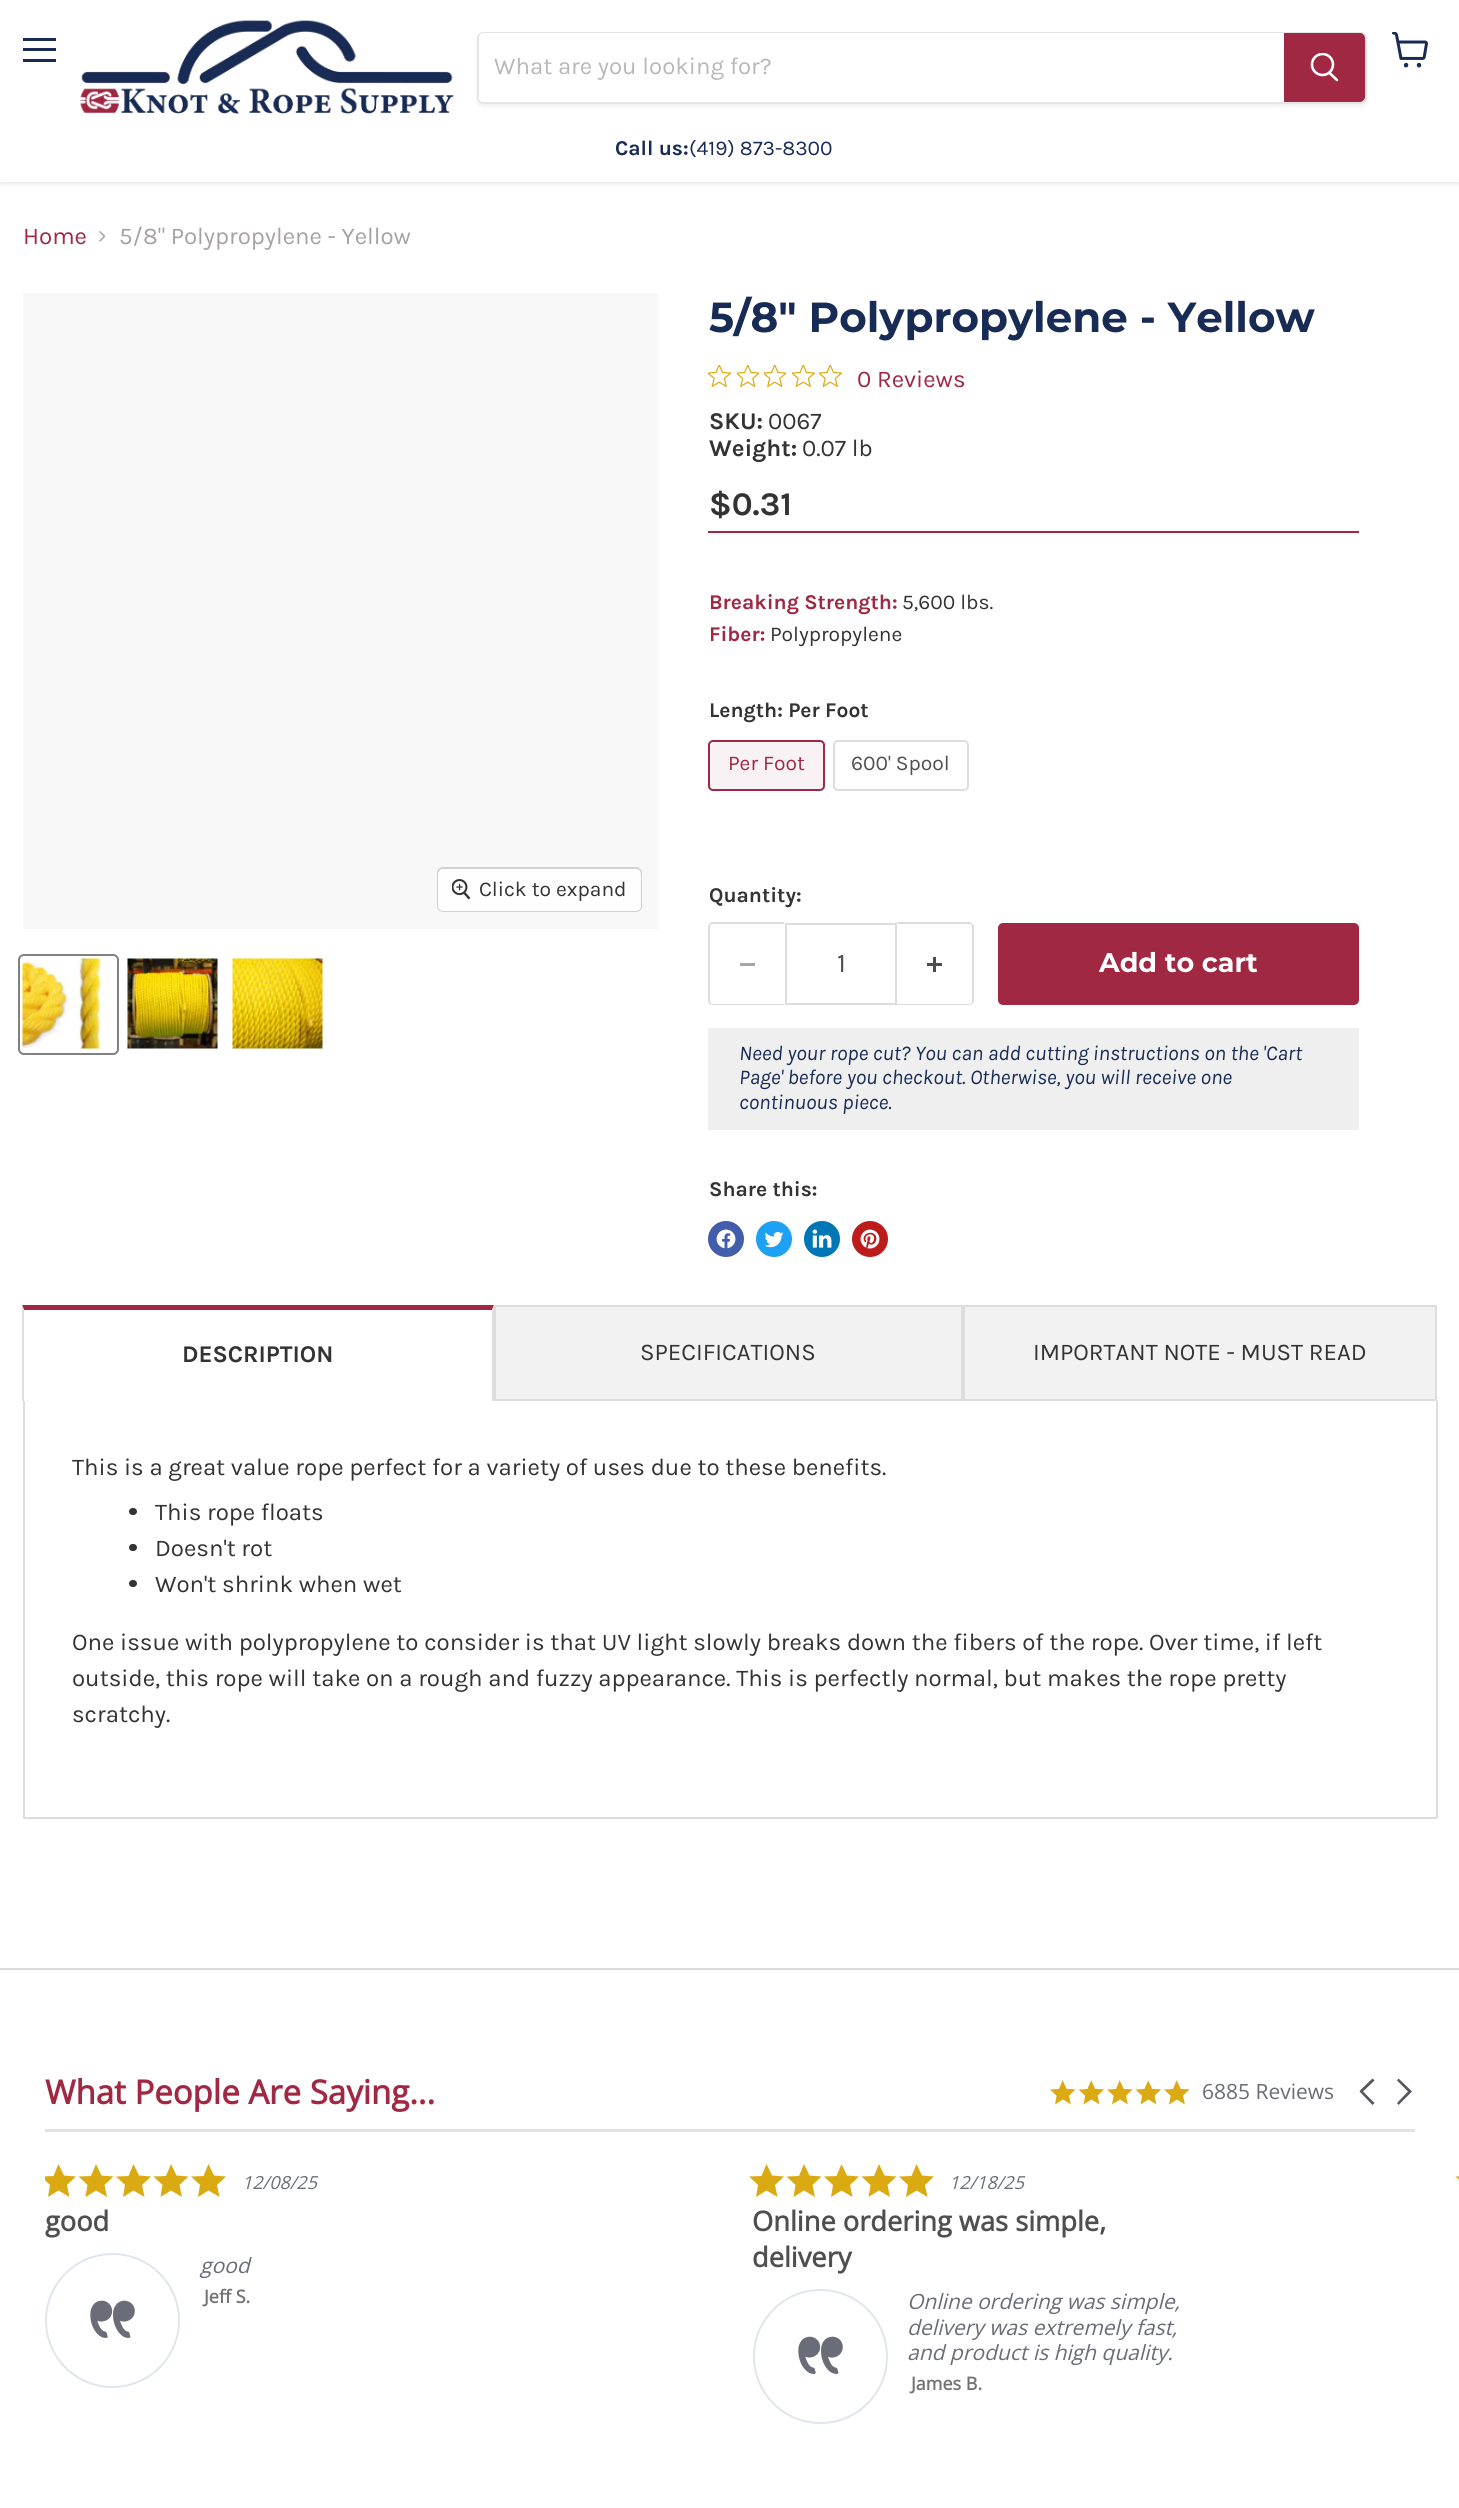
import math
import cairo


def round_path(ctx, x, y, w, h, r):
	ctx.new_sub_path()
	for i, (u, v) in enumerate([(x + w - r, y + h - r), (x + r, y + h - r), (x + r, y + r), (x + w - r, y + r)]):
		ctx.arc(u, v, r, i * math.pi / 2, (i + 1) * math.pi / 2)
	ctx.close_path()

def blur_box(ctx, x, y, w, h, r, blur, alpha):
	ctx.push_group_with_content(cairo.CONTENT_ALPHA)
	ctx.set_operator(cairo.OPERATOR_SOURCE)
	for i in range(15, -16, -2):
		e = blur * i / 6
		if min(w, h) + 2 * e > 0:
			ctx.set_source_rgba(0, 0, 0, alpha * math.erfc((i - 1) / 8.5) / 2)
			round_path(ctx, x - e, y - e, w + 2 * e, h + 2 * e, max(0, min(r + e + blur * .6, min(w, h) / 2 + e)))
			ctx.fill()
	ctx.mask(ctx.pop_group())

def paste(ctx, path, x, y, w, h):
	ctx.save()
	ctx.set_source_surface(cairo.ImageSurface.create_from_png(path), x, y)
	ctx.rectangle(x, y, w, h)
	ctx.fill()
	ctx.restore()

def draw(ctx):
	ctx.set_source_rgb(1, 1, 1)
	ctx.paint()
	ctx.set_source_rgb(0.502, 0.502, 0.502)
	blur_box(ctx, 0, 2, 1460, 181, 0, 3, 0.25)
	ctx.set_source_rgb(1, 1, 1)
	ctx.rectangle(0, 0, 1459, 182)
	ctx.fill()
	ctx.set_source_rgb(0.094, 0.169, 0.329)
	ctx.rectangle(23, 38, 33, 3)
	ctx.rectangle(23, 48, 33, 3)
	ctx.rectangle(23, 59, 33, 3)
	ctx.fill()
	paste(ctx, 'media/1.png', 1392, 32, 36, 36)
	paste(ctx, 'media/2.png', 80, 20, 374, 94)
	ctx.save()
	ctx.set_fill_rule(cairo.FILL_RULE_EVEN_ODD)
	ctx.new_path()
	ctx.move_to(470, 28)
	ctx.line_to(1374, 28)
	ctx.line_to(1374, 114)
	ctx.line_to(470, 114)
	ctx.close_path()
	ctx.move_to(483, 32)
	ctx.line_to(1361, 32)
	ctx.curve_to(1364.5, 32, 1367, 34.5, 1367, 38)
	ctx.line_to(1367, 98)
	ctx.curve_to(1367, 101.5, 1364.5, 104, 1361, 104)
	ctx.line_to(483, 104)
	ctx.curve_to(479.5, 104, 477, 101.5, 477, 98)
	ctx.line_to(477, 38)
	ctx.curve_to(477, 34.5, 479.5, 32, 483, 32)
	ctx.close_path()
	ctx.clip()
	ctx.set_source_rgb(0.502, 0.502, 0.502)
	blur_box(ctx, 477, 35, 890, 72, 6, 2, 0.11)
	ctx.restore()
	round_path(ctx, 478, 33, 888, 70, 5)
	ctx.set_source_rgba(0.502, 0.502, 0.502, 0.2)
	ctx.stroke()
	ctx.set_source_rgb(1, 1, 1)
	ctx.new_path()
	ctx.move_to(484, 33)
	ctx.line_to(1284, 33)
	ctx.line_to(1284, 102)
	ctx.line_to(484, 102)
	ctx.curve_to(481, 102, 479, 100, 479, 97)
	ctx.line_to(479, 38)
	ctx.curve_to(479, 35, 481, 33, 484, 33)
	ctx.close_path()
	ctx.fill()
	ctx.select_font_face('Karla')
	ctx.set_font_size(24)
	ctx.set_source_rgb(0.722, 0.722, 0.722)
	ctx.move_to(494, 74)
	ctx.show_text('What are you looking for?')
	ctx.set_source_rgb(0.627, 0.157, 0.263)
	ctx.new_path()
	ctx.move_to(1285, 34)
	ctx.line_to(1360, 34)
	ctx.curve_to(1362, 34, 1364, 36, 1364, 38)
	ctx.line_to(1364, 97)
	ctx.curve_to(1364, 99, 1362, 101, 1360, 101)
	ctx.line_to(1285, 101)
	ctx.close_path()
	ctx.fill_preserve()
	ctx.stroke()
	ctx.new_path()
	ctx.move_to(1337, 80)
	ctx.line_to(1329.5, 73)
	ctx.set_source_rgb(1, 1, 1)
	ctx.set_line_width(2.6)
	ctx.set_line_cap(cairo.LINE_CAP_ROUND)
	ctx.stroke()
	ctx.save()
	ctx.rectangle(1310, 53, 30, 31)
	ctx.clip()
	ctx.arc(1322.5, 64.5, 10.5, 0, 2 * math.pi)
	ctx.set_line_cap(cairo.LINE_CAP_BUTT)
	ctx.stroke()
	ctx.restore()
	ctx.select_font_face('Karla', cairo.FONT_SLANT_NORMAL, cairo.FONT_WEIGHT_BOLD)
	ctx.set_font_size(21)
	ctx.set_source_rgb(0.094, 0.169, 0.329)
	ctx.move_to(615, 155)
	ctx.show_text('Call us:')
	ctx.select_font_face('Karla')
	ctx.move_to(689, 155)
	ctx.show_text('(419) 873-8300')
	ctx.set_source_rgb(0.851, 0.851, 0.851)
	ctx.rectangle(0, 1968, 1459, 2)
	ctx.fill()
	ctx.set_font_size(24)
	ctx.set_source_rgb(0.627, 0.157, 0.263)
	ctx.move_to(23, 244)
	ctx.show_text('Home')
	paste(ctx, 'media/3.png', 99, 231, 7, 11)
	ctx.set_source_rgb(0.655, 0.635, 0.635)
	ctx.move_to(119, 244)
	ctx.show_text('5/8" Polypropylene - Yellow')
	ctx.set_source_rgb(0.969, 0.969, 0.969)
	ctx.rectangle(23, 293, 636, 636)
	ctx.fill()
	round_path(ctx, 438, 868, 203, 43, 5)
	ctx.set_source_rgb(0.824, 0.824, 0.824)
	ctx.set_line_width(2)
	ctx.set_line_cap(cairo.LINE_CAP_BUTT)
	ctx.stroke()
	ctx.set_source_rgba(1, 1, 1, 0.9)
	round_path(ctx, 438, 869, 203, 42, 5)
	ctx.fill()
	paste(ctx, 'media/4.png', 452, 879, 19, 21)
	ctx.set_font_size(21)
	ctx.set_source_rgb(0.2, 0.2, 0.2)
	ctx.move_to(479, 896)
	ctx.show_text('Click to expand')
	round_path(ctx, 19, 955, 99, 99, 5)
	ctx.set_source_rgb(0.506, 0.506, 0.506)
	ctx.stroke()
	paste(ctx, 'media/5.png', 22, 958, 87, 91)
	paste(ctx, 'media/6.png', 127, 958, 91, 91)
	paste(ctx, 'media/7.png', 232, 958, 91, 91)
	ctx.select_font_face('Montserrat', cairo.FONT_SLANT_NORMAL, cairo.FONT_WEIGHT_BOLD)
	ctx.set_font_size(42)
	ctx.set_source_rgb(0.094, 0.169, 0.329)
	ctx.move_to(709, 332)
	ctx.show_text('5/8" Polypropylene - Yellow')
	paste(ctx, 'media/8.png', 708, 365, 23, 22)
	paste(ctx, 'media/9.png', 737, 365, 22, 22)
	paste(ctx, 'media/9.png', 764, 365, 22, 22)
	paste(ctx, 'media/8.png', 792, 365, 23, 22)
	paste(ctx, 'media/8.png', 819, 365, 23, 22)
	ctx.select_font_face('Karla')
	ctx.set_font_size(24)
	ctx.set_source_rgb(0.627, 0.157, 0.263)
	ctx.move_to(857, 387)
	ctx.show_text('0 Reviews')
	ctx.select_font_face('Karla', cairo.FONT_SLANT_NORMAL, cairo.FONT_WEIGHT_BOLD)
	ctx.set_source_rgb(0.2, 0.2, 0.2)
	ctx.move_to(709, 429)
	ctx.show_text('SKU:')
	ctx.select_font_face('Karla')
	ctx.move_to(768, 429)
	ctx.show_text('0067')
	ctx.select_font_face('Karla', cairo.FONT_SLANT_NORMAL, cairo.FONT_WEIGHT_BOLD)
	ctx.move_to(709, 456)
	ctx.show_text('Weight:')
	ctx.select_font_face('Karla')
	ctx.move_to(802, 456)
	ctx.show_text('0.07 lb')
	ctx.set_source_rgb(0.627, 0.157, 0.263)
	ctx.rectangle(708, 531, 651, 2)
	ctx.fill()
	ctx.select_font_face('Karla', cairo.FONT_SLANT_NORMAL, cairo.FONT_WEIGHT_BOLD)
	ctx.set_font_size(33)
	ctx.set_source_rgb(0.2, 0.2, 0.2)
	ctx.move_to(709, 515)
	ctx.show_text('$0.31')
	ctx.set_font_size(21)
	ctx.set_source_rgb(0.627, 0.157, 0.263)
	ctx.move_to(709, 609)
	ctx.show_text('Breaking Strength:')
	ctx.select_font_face('Karla')
	ctx.set_source_rgb(0.2, 0.2, 0.2)
	ctx.move_to(902, 609)
	ctx.show_text('5,600 lbs.')
	ctx.select_font_face('Karla', cairo.FONT_SLANT_NORMAL, cairo.FONT_WEIGHT_BOLD)
	ctx.set_source_rgb(0.627, 0.157, 0.263)
	ctx.move_to(709, 641)
	ctx.show_text('Fiber:')
	ctx.select_font_face('Karla')
	ctx.set_source_rgb(0.2, 0.2, 0.2)
	ctx.move_to(770, 641)
	ctx.show_text('Polypropylene')
	ctx.select_font_face('Karla', cairo.FONT_SLANT_NORMAL, cairo.FONT_WEIGHT_BOLD)
	ctx.move_to(709, 717)
	ctx.show_text('Length: Per Foot')
	ctx.set_source_rgb(0.976, 0.949, 0.957)
	round_path(ctx, 709, 741, 115, 49, 4)
	ctx.fill_preserve()
	ctx.set_source_rgb(0.627, 0.157, 0.263)
	ctx.stroke()
	ctx.select_font_face('Karla')
	ctx.move_to(728, 770)
	ctx.show_text('Per Foot')
	round_path(ctx, 834, 741, 134, 49, 4)
	ctx.set_source_rgb(0.867, 0.867, 0.867)
	ctx.stroke()
	ctx.set_source_rgb(0.31, 0.31, 0.31)
	ctx.move_to(851, 770)
	ctx.show_text('600\' Spool')
	ctx.select_font_face('Karla', cairo.FONT_SLANT_NORMAL, cairo.FONT_WEIGHT_BOLD)
	ctx.set_source_rgb(0.2, 0.2, 0.2)
	ctx.move_to(709, 902)
	ctx.show_text('Quantity:')
	ctx.set_source_rgb(0.867, 0.867, 0.867)
	ctx.set_fill_rule(cairo.FILL_RULE_EVEN_ODD)
	ctx.new_path()
	ctx.move_to(712, 922)
	ctx.line_to(784, 922)
	ctx.line_to(784, 1005)
	ctx.line_to(712, 1005)
	ctx.curve_to(710, 1005, 708, 1003, 708, 1000)
	ctx.line_to(708, 927)
	ctx.curve_to(708, 925, 710, 922, 712, 922)
	ctx.close_path()
	ctx.move_to(712, 924)
	ctx.line_to(784, 924)
	ctx.line_to(784, 1004)
	ctx.line_to(712, 1004)
	ctx.curve_to(711, 1004, 710, 1002, 710, 1000)
	ctx.line_to(710, 927)
	ctx.curve_to(710, 925, 711, 924, 712, 924)
	ctx.close_path()
	ctx.fill()
	ctx.set_source_rgb(0.651, 0.651, 0.651)
	ctx.rectangle(740, 963, 15, 3)
	ctx.fill()
	ctx.rectangle(786, 924, 110, 80)
	ctx.set_source_rgb(0.867, 0.867, 0.867)
	ctx.stroke()
	ctx.select_font_face('Karla')
	ctx.set_font_size(27)
	ctx.set_source_rgb(0.31, 0.31, 0.31)
	ctx.move_to(837, 972)
	ctx.show_text('1')
	ctx.set_source_rgb(0.867, 0.867, 0.867)
	ctx.new_path()
	ctx.move_to(897, 922)
	ctx.line_to(969, 922)
	ctx.curve_to(971, 922, 974, 925, 974, 927)
	ctx.line_to(974, 1000)
	ctx.curve_to(974, 1003, 971, 1005, 969, 1005)
	ctx.line_to(897, 1005)
	ctx.close_path()
	ctx.move_to(897, 924)
	ctx.line_to(969, 924)
	ctx.curve_to(971, 924, 972, 925, 972, 927)
	ctx.line_to(972, 1000)
	ctx.curve_to(972, 1002, 971, 1004, 969, 1004)
	ctx.line_to(897, 1004)
	ctx.close_path()
	ctx.fill()
	paste(ctx, 'media/10.png', 927, 957, 15, 15)
	ctx.set_source_rgb(0.627, 0.157, 0.263)
	round_path(ctx, 999, 924, 359, 80, 4)
	ctx.fill_preserve()
	ctx.stroke()
	ctx.select_font_face('Montserrat', cairo.FONT_SLANT_NORMAL, cairo.FONT_WEIGHT_BOLD)
	ctx.set_source_rgb(1, 1, 1)
	ctx.move_to(1099, 972)
	ctx.show_text('Add to cart')
	ctx.set_source_rgb(0.937, 0.937, 0.937)
	ctx.rectangle(708, 1028, 651, 102)
	ctx.fill()
	ctx.select_font_face('Karla', cairo.FONT_SLANT_ITALIC)
	ctx.set_font_size(21)
	ctx.set_source_rgb(0.094, 0.169, 0.329)
	for x, y, s in [
		(739, 1060, 'Need your rope cut? You can add cutting instructions on the \'Cart'),
		(739, 1084, 'Page\' before you checkout. Otherwise, you will receive one'),
		(739, 1109, 'continuous piece.'),
	]:
		ctx.move_to(x, y)
		ctx.show_text(s)
	ctx.select_font_face('Karla', cairo.FONT_SLANT_NORMAL, cairo.FONT_WEIGHT_BOLD)
	ctx.set_source_rgb(0.2, 0.2, 0.2)
	ctx.move_to(709, 1196)
	ctx.show_text('Share this:')
	ctx.set_source_rgb(0.259, 0.365, 0.671)
	ctx.new_path()
	ctx.arc(726, 1239, 18, 0, 2 * math.pi)
	ctx.fill()
	paste(ctx, 'media/11.png', 716, 1229, 20, 20)
	ctx.set_source_rgb(0.114, 0.631, 0.949)
	ctx.arc(774, 1239, 18, 0, 2 * math.pi)
	ctx.fill()
	paste(ctx, 'media/12.png', 764, 1231, 20, 17)
	ctx.set_source_rgb(0, 0.467, 0.71)
	ctx.arc(822, 1239, 18, 0, 2 * math.pi)
	ctx.fill()
	paste(ctx, 'media/13.png', 812, 1229, 20, 19)
	ctx.set_source_rgb(0.741, 0.11, 0.11)
	ctx.arc(870, 1239, 18, 0, 2 * math.pi)
	ctx.fill()
	paste(ctx, 'media/14.png', 860, 1229, 20, 20)
	ctx.set_source_rgb(0.627, 0.157, 0.263)
	ctx.set_fill_rule(cairo.FILL_RULE_WINDING)
	ctx.new_path()
	ctx.move_to(22, 1305)
	ctx.line_to(494, 1305)
	ctx.line_to(492, 1310)
	ctx.line_to(24, 1310)
	ctx.close_path()
	ctx.fill()
	ctx.set_source_rgb(0.867, 0.867, 0.867)
	ctx.new_path()
	ctx.move_to(494, 1305)
	ctx.line_to(494, 1401)
	ctx.line_to(492, 1401)
	ctx.line_to(492, 1310)
	ctx.close_path()
	ctx.fill()
	ctx.new_path()
	ctx.move_to(22, 1401)
	ctx.line_to(22, 1305)
	ctx.line_to(24, 1310)
	ctx.line_to(24, 1401)
	ctx.close_path()
	ctx.fill()
	ctx.set_font_size(24)
	ctx.set_source_rgb(0.2, 0.2, 0.2)
	ctx.move_to(182, 1362)
	ctx.show_text('DESCRIPTION')
	ctx.set_source_rgb(0.949, 0.949, 0.949)
	ctx.rectangle(495, 1306, 467, 94)
	ctx.fill_preserve()
	ctx.set_source_rgb(0.867, 0.867, 0.867)
	ctx.stroke()
	ctx.select_font_face('Karla')
	ctx.set_source_rgb(0.2, 0.2, 0.2)
	ctx.move_to(640, 1360)
	ctx.show_text('SPECIFICATIONS')
	ctx.set_source_rgb(0.949, 0.949, 0.949)
	ctx.rectangle(964, 1306, 472, 94)
	ctx.fill_preserve()
	ctx.set_source_rgb(0.867, 0.867, 0.867)
	ctx.stroke()
	ctx.set_source_rgb(0.2, 0.2, 0.2)
	ctx.move_to(1033, 1360)
	ctx.show_text('IMPORTANT NOTE - MUST READ')
	ctx.set_source_rgb(0.867, 0.867, 0.867)
	ctx.rectangle(1436, 1401, 2, 417)
	ctx.rectangle(23, 1817, 1414, 2)
	ctx.rectangle(23, 1401, 2, 417)
	ctx.fill()
	ctx.set_source_rgb(0.2, 0.2, 0.2)
	ctx.move_to(72, 1475)
	ctx.show_text('This is a great value rope perfect for a variety of uses due to these benefits.')
	round_path(ctx, 129, 1508, 8, 7, 3.5)
	ctx.fill()
	ctx.move_to(155, 1520)
	ctx.show_text('This rope floats')
	round_path(ctx, 129, 1544, 8, 7, 3.5)
	ctx.fill()
	ctx.move_to(155, 1556)
	ctx.show_text('Doesn\'t rot')
	round_path(ctx, 129, 1580, 8, 7, 3.5)
	ctx.fill()
	for x, y, s in [
		(155, 1592, 'Won\'t shrink when wet'),
		(72, 1650, 'One issue with polypropylene to consider is that UV light slowly breaks down the fibers of the rope. Over time, if left'),
		(72, 1686, 'outside, this rope will take on a rough and fuzzy appearance. This is perfectly normal, but makes the rope pretty'),
		(72, 1722, 'scratchy.'),
	]:
		ctx.move_to(x, y)
		ctx.show_text(s)
	ctx.set_source_rgb(0.89, 0.89, 0.89)
	ctx.rectangle(45, 2129, 1370, 3)
	ctx.fill()
	ctx.select_font_face('Open Sans', cairo.FONT_SLANT_NORMAL, cairo.FONT_WEIGHT_BOLD)
	ctx.set_font_size(33)
	ctx.set_source_rgb(0.627, 0.157, 0.263)
	ctx.move_to(45, 2104)
	ctx.show_text('What People Are Saying...')
	paste(ctx, 'media/15.png', 1050, 2080, 26, 25)
	paste(ctx, 'media/16.png', 1078, 2080, 26, 25)
	paste(ctx, 'media/15.png', 1107, 2080, 26, 25)
	paste(ctx, 'media/16.png', 1135, 2080, 26, 25)
	paste(ctx, 'media/15.png', 1164, 2080, 26, 25)
	ctx.select_font_face('Open Sans')
	ctx.set_font_size(21)
	ctx.set_source_rgb(0.416, 0.424, 0.467)
	ctx.move_to(1202, 2099)
	ctx.show_text('6885 Reviews')
	ctx.set_source_rgb(0.337, 0.341, 0.373)
	ctx.new_path()
	ctx.move_to(1361, 2089.5)
	ctx.line_to(1372.5, 2078.5)
	ctx.line_to(1374.5, 2080.5)
	ctx.line_to(1363, 2091.5)
	ctx.line_to(1374.5, 2103)
	ctx.line_to(1372.5, 2105)
	ctx.line_to(1359.5, 2091.5)
	ctx.close_path()
	ctx.move_to(1410, 2089.5)
	ctx.line_to(1398.5, 2078.5)
	ctx.line_to(1397, 2080.5)
	ctx.line_to(1408, 2091.5)
	ctx.line_to(1397, 2103)
	ctx.line_to(1398.5, 2105)
	ctx.line_to(1412, 2091.5)
	ctx.close_path()
	ctx.fill()
	ctx.save()
	ctx.rectangle(45, 2139, 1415, 303)
	ctx.clip()
	ctx.set_source_rgb(0.859, 0.667, 0.071)
	ctx.new_path()
	ctx.move_to(69.5, 2197)
	ctx.line_to(58.5, 2190.5)
	ctx.line_to(48, 2197)
	ctx.line_to(50, 2185)
	ctx.line_to(41, 2176.5)
	ctx.line_to(53.5, 2176)
	ctx.line_to(58.5, 2164)
	ctx.line_to(64, 2175.5)
	ctx.line_to(76, 2176.5)
	ctx.line_to(67, 2185)
	ctx.close_path()
	ctx.fill()
	ctx.restore()
	ctx.set_source_rgb(0.859, 0.667, 0.071)
	ctx.new_path()
	ctx.move_to(107, 2197)
	ctx.line_to(96, 2190.5)
	ctx.line_to(85.5, 2197)
	ctx.line_to(87.5, 2185)
	ctx.line_to(78.5, 2176.5)
	ctx.line_to(91, 2176)
	ctx.line_to(96, 2164)
	ctx.line_to(101.5, 2175.5)
	ctx.line_to(113.5, 2176.5)
	ctx.line_to(104.5, 2185)
	ctx.close_path()
	ctx.fill()
	ctx.new_path()
	ctx.move_to(144.5, 2197)
	ctx.line_to(133.5, 2190.5)
	ctx.line_to(123, 2197)
	ctx.line_to(125, 2185)
	ctx.line_to(116, 2176.5)
	ctx.line_to(128.5, 2176)
	ctx.line_to(133.5, 2164)
	ctx.line_to(139, 2175.5)
	ctx.line_to(151, 2176.5)
	ctx.line_to(142, 2185)
	ctx.close_path()
	ctx.fill()
	ctx.new_path()
	ctx.move_to(182, 2197)
	ctx.line_to(171, 2190.5)
	ctx.line_to(160.5, 2197)
	ctx.line_to(162.5, 2185)
	ctx.line_to(153.5, 2176.5)
	ctx.line_to(166, 2176)
	ctx.line_to(171, 2164)
	ctx.line_to(176.5, 2175.5)
	ctx.line_to(188.5, 2176.5)
	ctx.line_to(179.5, 2185)
	ctx.close_path()
	ctx.fill()
	ctx.new_path()
	ctx.move_to(219.5, 2197)
	ctx.line_to(208.5, 2190.5)
	ctx.line_to(198, 2197)
	ctx.line_to(200, 2185)
	ctx.line_to(191, 2176.5)
	ctx.line_to(203.5, 2176)
	ctx.line_to(208.5, 2164)
	ctx.line_to(214, 2175.5)
	ctx.line_to(226, 2176.5)
	ctx.line_to(217, 2185)
	ctx.close_path()
	ctx.fill()
	ctx.select_font_face('Open Sans', cairo.FONT_SLANT_ITALIC)
	ctx.set_font_size(18)
	ctx.set_source_rgb(0.416, 0.424, 0.467)
	ctx.move_to(242, 2189)
	ctx.show_text('12/08/25')
	ctx.select_font_face('Open Sans', cairo.FONT_SLANT_NORMAL, cairo.FONT_WEIGHT_BOLD)
	ctx.set_font_size(27.25)
	ctx.set_source_rgb(0.31, 0.31, 0.31)
	ctx.move_to(45, 2231)
	ctx.show_text('good')
	ctx.new_path()
	ctx.arc(112.5, 2320.5, 66.5, 0, 2 * math.pi)
	ctx.set_source_rgb(0.882, 0.898, 0.933)
	ctx.stroke()
	paste(ctx, 'media/17.png', 90, 2300, 45, 38)
	ctx.select_font_face('Open Sans', cairo.FONT_SLANT_ITALIC)
	ctx.set_font_size(21)
	ctx.set_source_rgb(0.416, 0.424, 0.467)
	ctx.move_to(200, 2273)
	ctx.show_text('good')
	ctx.select_font_face('Open Sans', cairo.FONT_SLANT_NORMAL, cairo.FONT_WEIGHT_BOLD)
	ctx.set_font_size(18)
	ctx.set_source_rgb(0.451, 0.451, 0.451)
	ctx.move_to(204, 2303)
	ctx.show_text('Jeff S.')
	ctx.set_source_rgb(0.859, 0.667, 0.071)
	ctx.new_path()
	ctx.move_to(777.5, 2197)
	ctx.line_to(766.5, 2190.5)
	ctx.line_to(756, 2197)
	ctx.line_to(758, 2185)
	ctx.line_to(749, 2176.5)
	ctx.line_to(761.5, 2176)
	ctx.line_to(766.5, 2164)
	ctx.line_to(772, 2175.5)
	ctx.line_to(784, 2176.5)
	ctx.line_to(775, 2185)
	ctx.close_path()
	ctx.fill()
	ctx.new_path()
	ctx.move_to(815, 2197)
	ctx.line_to(804, 2190.5)
	ctx.line_to(793.5, 2197)
	ctx.line_to(795.5, 2185)
	ctx.line_to(786.5, 2176.5)
	ctx.line_to(799, 2176)
	ctx.line_to(804, 2164)
	ctx.line_to(809.5, 2175.5)
	ctx.line_to(821.5, 2176.5)
	ctx.line_to(812.5, 2185)
	ctx.close_path()
	ctx.fill()
	ctx.new_path()
	ctx.move_to(852.5, 2197)
	ctx.line_to(841.5, 2190.5)
	ctx.line_to(831, 2197)
	ctx.line_to(833, 2185)
	ctx.line_to(824, 2176.5)
	ctx.line_to(836.5, 2176)
	ctx.line_to(841.5, 2164)
	ctx.line_to(847, 2175.5)
	ctx.line_to(859, 2176.5)
	ctx.line_to(850, 2185)
	ctx.close_path()
	ctx.fill()
	ctx.new_path()
	ctx.move_to(890, 2197)
	ctx.line_to(879, 2190.5)
	ctx.line_to(868.5, 2197)
	ctx.line_to(870.5, 2185)
	ctx.line_to(861.5, 2176.5)
	ctx.line_to(874, 2176)
	ctx.line_to(879, 2164)
	ctx.line_to(884.5, 2175.5)
	ctx.line_to(896.5, 2176.5)
	ctx.line_to(887.5, 2185)
	ctx.close_path()
	ctx.fill()
	ctx.new_path()
	ctx.move_to(927.5, 2197)
	ctx.line_to(916.5, 2190.5)
	ctx.line_to(906, 2197)
	ctx.line_to(908, 2185)
	ctx.line_to(899, 2176.5)
	ctx.line_to(911.5, 2176)
	ctx.line_to(916.5, 2164)
	ctx.line_to(922, 2175.5)
	ctx.line_to(934, 2176.5)
	ctx.line_to(925, 2185)
	ctx.close_path()
	ctx.fill()
	ctx.select_font_face('Open Sans', cairo.FONT_SLANT_ITALIC)
	ctx.set_source_rgb(0.416, 0.424, 0.467)
	ctx.move_to(949, 2189)
	ctx.show_text('12/18/25')
	ctx.select_font_face('Open Sans', cairo.FONT_SLANT_NORMAL, cairo.FONT_WEIGHT_BOLD)
	ctx.set_font_size(27.25)
	ctx.set_source_rgb(0.31, 0.31, 0.31)
	ctx.move_to(752, 2231)
	ctx.show_text('Online ordering was simple,')
	ctx.move_to(752, 2267)
	ctx.show_text('delivery')
	ctx.new_path()
	ctx.arc(820.5, 2356.5, 66.5, 0, 2 * math.pi)
	ctx.set_source_rgb(0.882, 0.898, 0.933)
	ctx.stroke()
	paste(ctx, 'media/17.png', 798, 2336, 45, 38)
	ctx.select_font_face('Open Sans', cairo.FONT_SLANT_ITALIC)
	ctx.set_font_size(21)
	ctx.set_source_rgb(0.416, 0.424, 0.467)
	for x, y, s in [
		(907, 2309, 'Online ordering was simple,'),
		(907, 2335, 'delivery was extremely fast,'),
		(907, 2360, 'and product is high quality.'),
	]:
		ctx.move_to(x, y)
		ctx.show_text(s)
	ctx.select_font_face('Open Sans', cairo.FONT_SLANT_NORMAL, cairo.FONT_WEIGHT_BOLD)
	ctx.set_font_size(18)
	ctx.set_source_rgb(0.451, 0.451, 0.451)
	ctx.move_to(911, 2390)
	ctx.show_text('James B.')
	ctx.set_source_rgb(0.859, 0.667, 0.071)
	ctx.new_path()
	ctx.move_to(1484, 2197)
	ctx.line_to(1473, 2190.5)
	ctx.line_to(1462.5, 2197)
	ctx.line_to(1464.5, 2185)
	ctx.line_to(1455.5, 2176.5)
	ctx.line_to(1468, 2176)
	ctx.line_to(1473, 2164)
	ctx.line_to(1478.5, 2175.5)
	ctx.line_to(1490.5, 2176.5)
	ctx.line_to(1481.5, 2185)
	ctx.close_path()
	ctx.fill()


surface = cairo.ImageSurface(cairo.FORMAT_RGB24, 1459, 2508)
ctx = cairo.Context(surface)
options = cairo.FontOptions()
options.set_hint_metrics(cairo.HINT_METRICS_OFF)
options.set_hint_style(cairo.HINT_STYLE_NONE)
ctx.set_font_options(options)
ctx.set_miter_limit(4)
draw(ctx)
surface.write_to_png('image.png')
